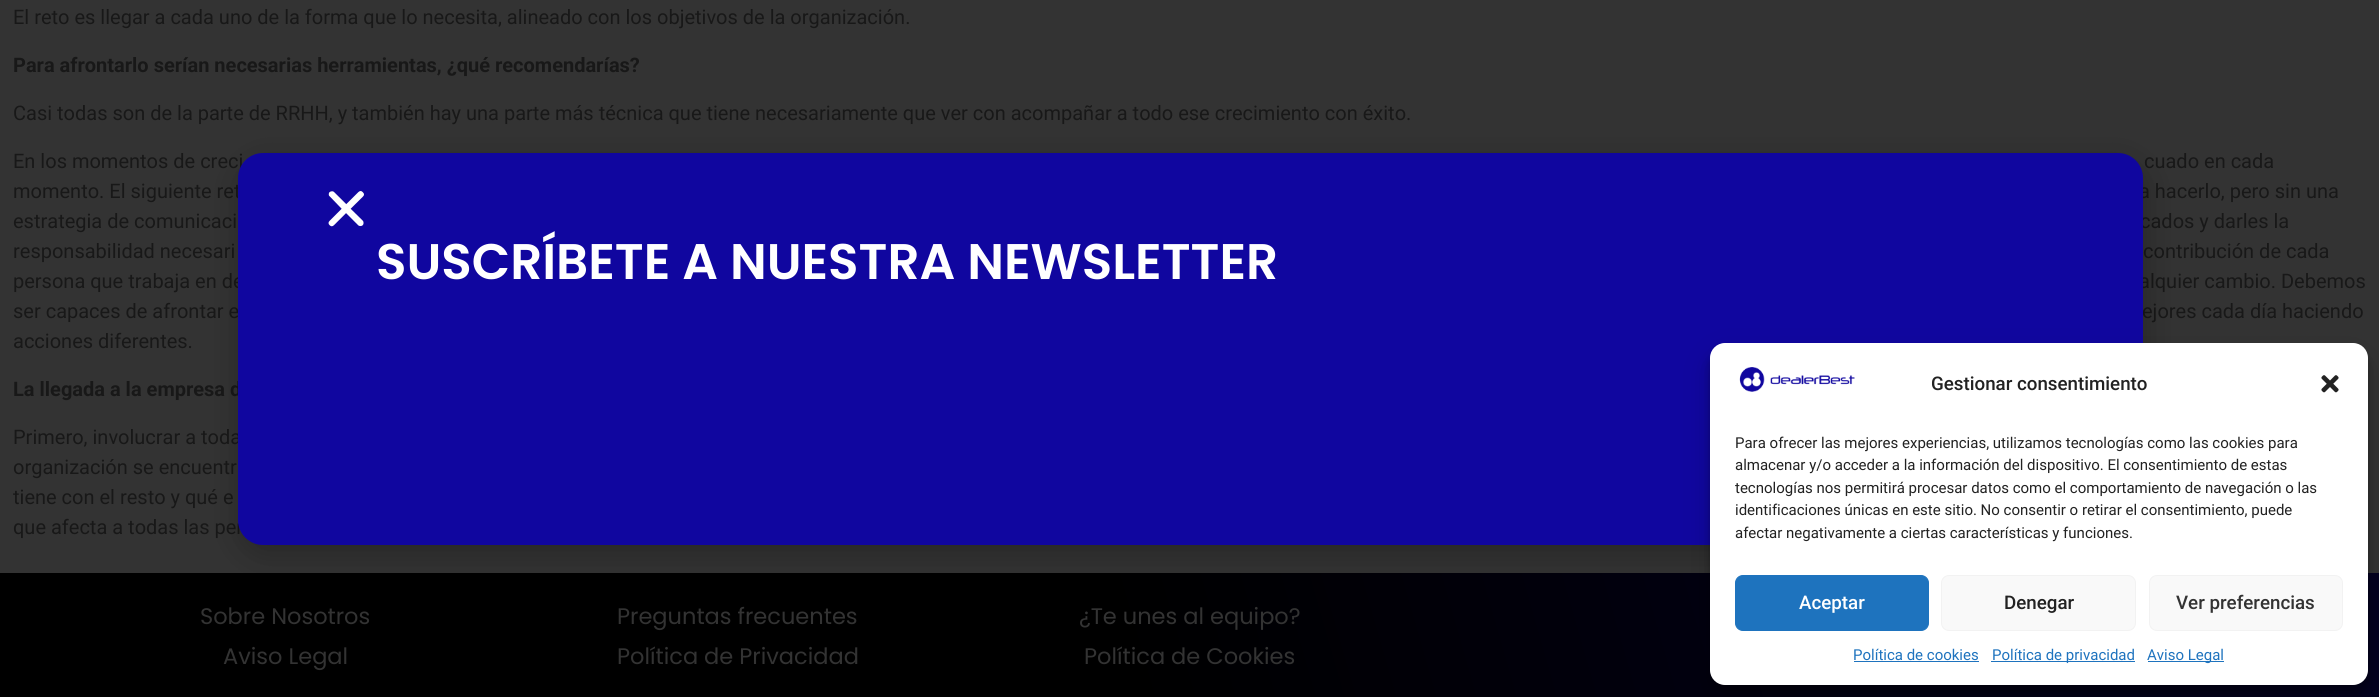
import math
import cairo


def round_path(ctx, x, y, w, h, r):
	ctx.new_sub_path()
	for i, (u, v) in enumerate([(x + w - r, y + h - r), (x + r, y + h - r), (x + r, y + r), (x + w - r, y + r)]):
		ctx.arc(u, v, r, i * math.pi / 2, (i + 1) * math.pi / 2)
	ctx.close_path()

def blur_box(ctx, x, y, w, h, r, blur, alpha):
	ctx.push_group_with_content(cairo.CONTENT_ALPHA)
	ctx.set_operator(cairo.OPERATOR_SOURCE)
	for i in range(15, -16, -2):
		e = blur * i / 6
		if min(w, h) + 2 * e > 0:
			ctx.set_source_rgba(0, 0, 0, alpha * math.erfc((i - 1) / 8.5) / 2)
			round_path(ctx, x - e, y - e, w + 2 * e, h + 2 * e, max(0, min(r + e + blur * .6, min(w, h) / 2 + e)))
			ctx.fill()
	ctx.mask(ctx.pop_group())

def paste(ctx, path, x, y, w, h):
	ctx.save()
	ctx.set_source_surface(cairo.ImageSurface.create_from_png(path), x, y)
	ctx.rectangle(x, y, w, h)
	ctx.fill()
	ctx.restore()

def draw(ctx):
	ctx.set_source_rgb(0.2, 0.2, 0.2)
	ctx.paint()
	ctx.select_font_face('Roboto')
	ctx.set_font_size(20)
	ctx.set_source_rgb(0.094, 0.094, 0.094)
	ctx.move_to(13, 24)
	ctx.show_text('El reto es llegar a cada uno de la forma que lo necesita, alineado con los objetivos de la organización.')
	ctx.select_font_face('Roboto', cairo.FONT_SLANT_NORMAL, cairo.FONT_WEIGHT_BOLD)
	ctx.move_to(13, 72)
	ctx.show_text('Para afrontarlo serían necesarias herramientas, ¿qué recomendarías?')
	ctx.select_font_face('Roboto')
	for x, y, s in [
		(13, 120, 'Casi todas son de la parte de RRHH, y también hay una parte más técnica que tiene necesariamente que ver con acompañar a todo ese crecimiento con éxito.'),
		(13, 168, 'En los momentos de creci'),
		(2144, 168, 'cuado en cada'),
		(13, 198, 'momento. El siguiente ret'),
		(2139, 198, 'a hacerlo, pero sin una'),
		(13, 228, 'estrategia de comunicaci'),
		(2140, 228, 'cados y darles la'),
		(13, 258, 'responsabilidad necesari'),
		(2143, 258, 'contribución de cada'),
		(13, 288, 'persona que trabaja en de'),
		(2139, 288, 'alquier cambio. Debemos'),
		(13, 318, 'ser capaces de afrontar e'),
		(2142, 318, 'ejores cada día haciendo'),
		(13, 348, 'acciones diferentes.'),
	]:
		ctx.move_to(x, y)
		ctx.show_text(s)
	ctx.select_font_face('Roboto', cairo.FONT_SLANT_NORMAL, cairo.FONT_WEIGHT_BOLD)
	ctx.move_to(13, 396)
	ctx.show_text('La llegada a la empresa d')
	ctx.select_font_face('Roboto')
	for x, y, s in [
		(13, 444, 'Primero, involucrar a toda'),
		(13, 474, 'organización se encuentr'),
		(13, 504, 'tiene con el resto y qué e'),
		(13, 534, 'que afecta a todas las per'),
	]:
		ctx.move_to(x, y)
		ctx.show_text(s)
	gradient = cairo.LinearGradient(74, 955, 2306, 315)
	gradient.add_color_stop_rgba(0.47, 0, 0, 0, 1)
	gradient.add_color_stop_rgba(1, 0.012, 0.004, 0.125, 1)
	ctx.set_source(gradient)
	ctx.rectangle(0, 573, 2379, 124)
	ctx.fill()
	ctx.set_source_rgb(0, 0, 0)
	blur_box(ctx, 236, 159, 1913, 400, 29, 14.5, 0.2)
	ctx.set_source_rgb(0.063, 0.024, 0.624)
	round_path(ctx, 238, 153, 1905, 392, 25)
	ctx.fill()
	paste(ctx, 'media/1.png', 328, 191, 36, 36)
	ctx.select_font_face('Poppins SemiBold')
	ctx.set_font_size(50)
	ctx.set_source_rgb(1, 1, 1)
	ctx.move_to(376, 279)
	ctx.show_text('SUSCRÍBETE A NUESTRA NEWSLETTER')
	ctx.select_font_face('Poppins')
	ctx.set_font_size(22.5)
	ctx.set_source_rgb(0.2, 0.2, 0.2)
	for x, y, s in [
		(200, 624, 'Sobre Nosotros'),
		(223, 664, 'Aviso Legal'),
		(617, 624, 'Preguntas frecuentes'),
		(617, 664, 'Política de Privacidad'),
		(1079, 624, '¿Te unes al equipo?'),
		(1084, 664, 'Política de Cookies'),
	]:
		ctx.move_to(x, y)
		ctx.show_text(s)
	ctx.set_source_rgb(0, 0, 0)
	blur_box(ctx, 1710, 350, 658, 343, 15, 4, 0.23)
	blur_box(ctx, 1710, 355, 658, 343, 15, 12.5, 0.19)
	ctx.set_source_rgb(1, 1, 1)
	round_path(ctx, 1710, 343, 658, 342, 15)
	ctx.fill()
	paste(ctx, 'media/2.png', 1739, 367, 116, 25)
	ctx.select_font_face('Roboto Medium')
	ctx.set_font_size(18.75)
	ctx.set_source_rgb(0.133, 0.133, 0.133)
	ctx.move_to(1931, 390)
	ctx.show_text('Gestionar consentimiento')
	paste(ctx, 'media/3.png', 2321, 375, 18, 18)
	ctx.select_font_face('Roboto')
	ctx.set_font_size(15)
	for x, y, s in [
		(1735, 448, 'Para ofrecer las mejores experiencias, utilizamos tecnologías como las cookies para'),
		(1735, 470, 'almacenar y/o acceder a la información del dispositivo. El consentimiento de estas'),
		(1735, 493, 'tecnologías nos permitirá procesar datos como el comportamiento de navegación o las'),
		(1735, 515, 'identificaciones únicas en este sitio. No consentir o retirar el consentimiento, puede'),
		(1735, 538, 'afectar negativamente a ciertas características y funciones.'),
	]:
		ctx.move_to(x, y)
		ctx.show_text(s)
	ctx.set_source_rgb(0.118, 0.451, 0.745)
	round_path(ctx, 1735.5, 575.5, 193, 55, 7.5)
	ctx.fill_preserve()
	ctx.set_line_width(1)
	ctx.stroke()
	ctx.select_font_face('Roboto Medium')
	ctx.set_font_size(18.75)
	ctx.set_source_rgb(1, 1, 1)
	ctx.move_to(1799, 609)
	ctx.show_text('Aceptar')
	ctx.set_source_rgb(0.976, 0.976, 0.976)
	round_path(ctx, 1941.5, 575.5, 194, 55, 7.5)
	ctx.fill_preserve()
	ctx.set_source_rgb(0.949, 0.949, 0.949)
	ctx.stroke()
	ctx.set_source_rgb(0.133, 0.133, 0.133)
	ctx.move_to(2004, 609)
	ctx.show_text('Denegar')
	ctx.set_source_rgb(0.976, 0.976, 0.976)
	round_path(ctx, 2149.5, 575.5, 193, 55, 7.5)
	ctx.fill_preserve()
	ctx.set_source_rgb(0.949, 0.949, 0.949)
	ctx.stroke()
	ctx.set_source_rgb(0.2, 0.2, 0.2)
	ctx.move_to(2176, 609)
	ctx.show_text('Ver preferencias')
	ctx.select_font_face('Roboto')
	ctx.set_font_size(15)
	ctx.set_source_rgb(0.118, 0.451, 0.745)
	ctx.move_to(1853, 660)
	ctx.show_text('Política de cookies')
	ctx.rectangle(1854, 661, 125, 1)
	ctx.fill()
	ctx.rectangle(1991, 661, 144, 1)
	ctx.fill()
	ctx.move_to(1992, 660)
	ctx.show_text('Política de privacidad')
	ctx.rectangle(2148, 661, 76, 1)
	ctx.fill()
	ctx.move_to(2147, 660)
	ctx.show_text('Aviso Legal')


surface = cairo.ImageSurface(cairo.FORMAT_RGB24, 2379, 697)
ctx = cairo.Context(surface)
options = cairo.FontOptions()
options.set_hint_metrics(cairo.HINT_METRICS_OFF)
options.set_hint_style(cairo.HINT_STYLE_NONE)
ctx.set_font_options(options)
ctx.set_miter_limit(4)
draw(ctx)
surface.write_to_png('image.png')
